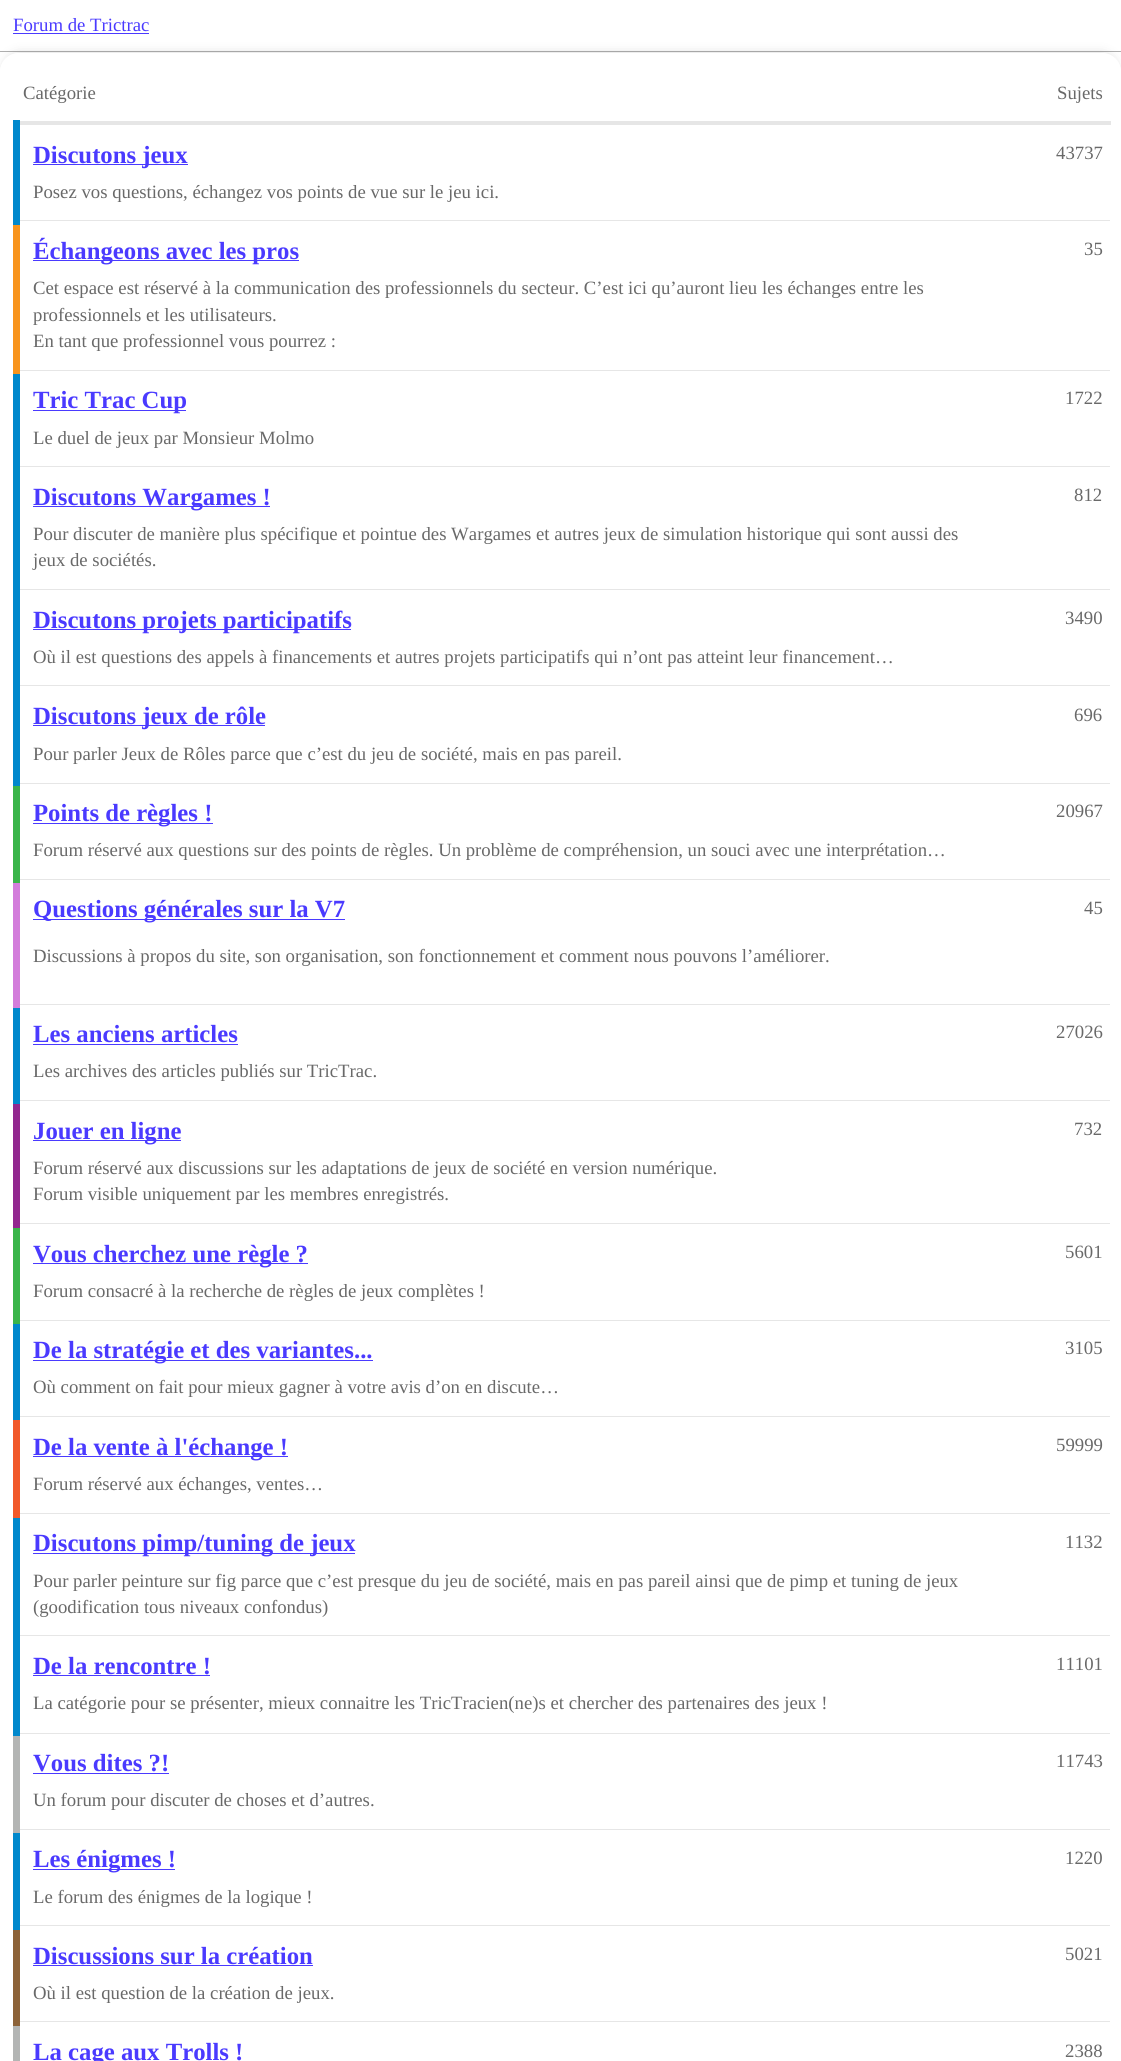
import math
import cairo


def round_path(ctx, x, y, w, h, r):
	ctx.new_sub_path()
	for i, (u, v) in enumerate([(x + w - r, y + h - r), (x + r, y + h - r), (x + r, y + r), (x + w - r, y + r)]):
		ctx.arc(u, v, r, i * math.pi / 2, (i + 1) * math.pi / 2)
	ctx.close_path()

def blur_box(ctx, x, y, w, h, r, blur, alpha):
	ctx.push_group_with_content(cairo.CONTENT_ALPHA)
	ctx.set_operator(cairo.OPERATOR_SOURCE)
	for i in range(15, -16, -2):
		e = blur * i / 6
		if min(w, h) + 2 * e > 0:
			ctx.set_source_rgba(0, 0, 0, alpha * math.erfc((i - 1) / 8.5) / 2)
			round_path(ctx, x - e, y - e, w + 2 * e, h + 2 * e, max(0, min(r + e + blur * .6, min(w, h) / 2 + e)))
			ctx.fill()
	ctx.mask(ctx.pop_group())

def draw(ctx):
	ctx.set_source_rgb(1, 1, 1)
	ctx.paint()
	ctx.set_source_rgb(0.686, 0.686, 0.686)
	ctx.rectangle(0, 51, 1121, 1)
	ctx.fill()
	ctx.select_font_face('Liberation Serif')
	ctx.set_font_size(18.75)
	ctx.set_source_rgb(0.29, 0.227, 1)
	ctx.move_to(13, 31)
	ctx.show_text('Forum de Trictrac')
	ctx.rectangle(13, 33, 136, 1)
	ctx.fill()
	ctx.save()
	ctx.set_fill_rule(cairo.FILL_RULE_EVEN_ODD)
	ctx.new_path()
	ctx.move_to(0, 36)
	ctx.line_to(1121, 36)
	ctx.line_to(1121, 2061)
	ctx.line_to(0, 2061)
	ctx.close_path()
	ctx.move_to(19, 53)
	ctx.line_to(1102, 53)
	ctx.curve_to(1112.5, 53, 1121, 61.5, 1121, 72)
	ctx.line_to(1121, 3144)
	ctx.curve_to(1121, 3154.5, 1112.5, 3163, 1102, 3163)
	ctx.line_to(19, 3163)
	ctx.curve_to(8.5, 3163, 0, 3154.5, 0, 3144)
	ctx.line_to(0, 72)
	ctx.curve_to(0, 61.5, 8.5, 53, 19, 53)
	ctx.close_path()
	ctx.clip()
	ctx.set_source_rgb(0, 0, 0)
	blur_box(ctx, 6, 55, 1109, 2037, 13, 6, 0.2)
	ctx.restore()
	ctx.set_source_rgb(0.412, 0.412, 0.412)
	ctx.move_to(23, 99)
	ctx.show_text('Catégorie')
	ctx.move_to(1057, 99)
	ctx.show_text('Sujets')
	ctx.set_source_rgb(0.902, 0.902, 0.902)
	ctx.rectangle(15, 121, 1096, 4)
	ctx.rectangle(16, 220, 1094, 1)
	ctx.rectangle(16, 370, 1094, 1)
	ctx.rectangle(16, 466, 1094, 1)
	ctx.rectangle(16, 589, 1094, 1)
	ctx.rectangle(16, 685, 1094, 1)
	ctx.rectangle(16, 783, 1094, 1)
	ctx.rectangle(16, 879, 1094, 1)
	ctx.rectangle(16, 1004, 1094, 1)
	ctx.rectangle(16, 1100, 1094, 1)
	ctx.rectangle(16, 1223, 1094, 1)
	ctx.rectangle(16, 1320, 1094, 1)
	ctx.rectangle(16, 1416, 1094, 1)
	ctx.rectangle(16, 1513, 1094, 1)
	ctx.rectangle(16, 1635, 1094, 1)
	ctx.rectangle(16, 1733, 1094, 1)
	ctx.rectangle(16, 1829, 1094, 1)
	ctx.rectangle(16, 1925, 1094, 1)
	ctx.rectangle(16, 2021, 1094, 1)
	ctx.fill()
	ctx.set_source_rgb(0.702, 0.71, 0.706)
	ctx.rectangle(13, 2019, 7, 42)
	ctx.fill()
	ctx.set_source_rgb(0.549, 0.384, 0.22)
	ctx.rectangle(13, 1923, 7, 103)
	ctx.fill()
	ctx.set_source_rgb(0, 0.533, 0.8)
	ctx.rectangle(13, 1825, 7, 105)
	ctx.fill()
	ctx.set_source_rgb(0.702, 0.71, 0.706)
	ctx.rectangle(13, 1729, 7, 104)
	ctx.fill()
	ctx.set_source_rgb(0, 0.533, 0.8)
	ctx.rectangle(13, 1510, 7, 226)
	ctx.fill()
	ctx.set_source_rgb(0.945, 0.349, 0.165)
	ctx.rectangle(13, 1413, 7, 105)
	ctx.fill()
	ctx.set_source_rgb(0, 0.533, 0.8)
	ctx.rectangle(13, 1316, 7, 104)
	ctx.fill()
	ctx.set_source_rgb(0.227, 0.71, 0.29)
	ctx.rectangle(13, 1220, 7, 104)
	ctx.fill()
	ctx.set_source_rgb(0.573, 0.153, 0.561)
	ctx.rectangle(13, 1096, 7, 132)
	ctx.fill()
	ctx.set_source_rgb(0, 0.533, 0.8)
	ctx.rectangle(13, 1000, 7, 104)
	ctx.fill()
	ctx.set_source_rgb(0.827, 0.49, 0.859)
	ctx.rectangle(13, 875, 7, 133)
	ctx.fill()
	ctx.set_source_rgb(0.227, 0.71, 0.29)
	ctx.rectangle(13, 779, 7, 104)
	ctx.fill()
	ctx.set_source_rgb(0, 0.533, 0.8)
	ctx.rectangle(13, 366, 7, 420)
	ctx.fill()
	ctx.set_source_rgb(0.969, 0.58, 0.114)
	ctx.rectangle(13, 218, 7, 156)
	ctx.fill()
	ctx.set_source_rgb(0, 0.533, 0.8)
	ctx.rectangle(13, 120, 7, 105)
	ctx.fill()
	ctx.set_source_rgb(0.29, 0.227, 1)
	ctx.rectangle(33, 164, 155, 1)
	ctx.fill()
	ctx.select_font_face('Liberation Serif', cairo.FONT_SLANT_NORMAL, cairo.FONT_WEIGHT_BOLD)
	ctx.set_font_size(24.75)
	ctx.move_to(33, 163)
	ctx.show_text('Discutons jeux')
	ctx.select_font_face('Liberation Serif')
	ctx.set_font_size(18.75)
	ctx.set_source_rgb(0.412, 0.412, 0.412)
	ctx.move_to(33, 198)
	ctx.show_text('Posez vos questions, échangez vos points de vue sur le jeu ici.')
	ctx.move_to(1056, 159)
	ctx.show_text('43737')
	ctx.set_source_rgb(0.29, 0.227, 1)
	ctx.rectangle(33, 260, 266, 1)
	ctx.fill()
	ctx.select_font_face('Liberation Serif', cairo.FONT_SLANT_NORMAL, cairo.FONT_WEIGHT_BOLD)
	ctx.set_font_size(24.75)
	ctx.move_to(33, 259)
	ctx.show_text('Échangeons avec les pros')
	ctx.select_font_face('Liberation Serif')
	ctx.set_font_size(18.75)
	ctx.set_source_rgb(0.412, 0.412, 0.412)
	for x, y, s in [
		(33, 294, 'Cet espace est réservé à la communication des professionnels du secteur. C’est ici qu’auront lieu les échanges entre les'),
		(33, 321, 'professionnels et les utilisateurs.'),
		(33, 347, 'En tant que professionnel vous pourrez :'),
		(1084, 255, '35'),
	]:
		ctx.move_to(x, y)
		ctx.show_text(s)
	ctx.set_source_rgb(0.29, 0.227, 1)
	ctx.rectangle(33, 410, 153, 1)
	ctx.fill()
	ctx.select_font_face('Liberation Serif', cairo.FONT_SLANT_NORMAL, cairo.FONT_WEIGHT_BOLD)
	ctx.set_font_size(24.75)
	ctx.move_to(33, 408)
	ctx.show_text('Tric Trac Cup')
	ctx.select_font_face('Liberation Serif')
	ctx.set_font_size(18.75)
	ctx.set_source_rgb(0.412, 0.412, 0.412)
	ctx.move_to(33, 444)
	ctx.show_text('Le duel de jeux par Monsieur Molmo')
	ctx.move_to(1065, 404)
	ctx.show_text('1722')
	ctx.set_source_rgb(0.29, 0.227, 1)
	ctx.rectangle(33, 506, 237, 1)
	ctx.fill()
	ctx.select_font_face('Liberation Serif', cairo.FONT_SLANT_NORMAL, cairo.FONT_WEIGHT_BOLD)
	ctx.set_font_size(24.75)
	ctx.move_to(33, 505)
	ctx.show_text('Discutons Wargames !')
	ctx.select_font_face('Liberation Serif')
	ctx.set_font_size(18.75)
	ctx.set_source_rgb(0.412, 0.412, 0.412)
	for x, y, s in [
		(33, 540, 'Pour discuter de manière plus spécifique et pointue des Wargames et autres jeux de simulation historique qui sont aussi des'),
		(33, 566, 'jeux de sociétés.'),
		(1074, 501, '812'),
	]:
		ctx.move_to(x, y)
		ctx.show_text(s)
	ctx.set_source_rgb(0.29, 0.227, 1)
	ctx.rectangle(33, 629, 318, 1)
	ctx.fill()
	ctx.select_font_face('Liberation Serif', cairo.FONT_SLANT_NORMAL, cairo.FONT_WEIGHT_BOLD)
	ctx.set_font_size(24.75)
	ctx.move_to(33, 628)
	ctx.show_text('Discutons projets participatifs')
	ctx.select_font_face('Liberation Serif')
	ctx.set_font_size(18.75)
	ctx.set_source_rgb(0.412, 0.412, 0.412)
	ctx.move_to(33, 663)
	ctx.show_text('Où il est questions des appels à financements et autres projets participatifs qui n’ont pas atteint leur financement…')
	ctx.move_to(1065, 624)
	ctx.show_text('3490')
	ctx.set_source_rgb(0.29, 0.227, 1)
	ctx.rectangle(33, 725, 232, 1)
	ctx.fill()
	ctx.select_font_face('Liberation Serif', cairo.FONT_SLANT_NORMAL, cairo.FONT_WEIGHT_BOLD)
	ctx.set_font_size(24.75)
	ctx.move_to(33, 724)
	ctx.show_text('Discutons jeux de rôle')
	ctx.select_font_face('Liberation Serif')
	ctx.set_font_size(18.75)
	ctx.set_source_rgb(0.412, 0.412, 0.412)
	ctx.move_to(33, 760)
	ctx.show_text('Pour parler Jeux de Rôles parce que c’est du jeu de société, mais en pas pareil.')
	ctx.move_to(1074, 721)
	ctx.show_text('696')
	ctx.set_source_rgb(0.29, 0.227, 1)
	ctx.rectangle(33, 823, 180, 1)
	ctx.fill()
	ctx.select_font_face('Liberation Serif', cairo.FONT_SLANT_NORMAL, cairo.FONT_WEIGHT_BOLD)
	ctx.set_font_size(24.75)
	ctx.move_to(33, 821)
	ctx.show_text('Points de règles !')
	ctx.select_font_face('Liberation Serif')
	ctx.set_font_size(18.75)
	ctx.set_source_rgb(0.412, 0.412, 0.412)
	ctx.move_to(33, 856)
	ctx.show_text('Forum réservé aux questions sur des points de règles. Un problème de compréhension, un souci avec une interprétation…')
	ctx.move_to(1056, 817)
	ctx.show_text('20967')
	ctx.set_source_rgb(0.29, 0.227, 1)
	ctx.rectangle(33, 919, 312, 1)
	ctx.fill()
	ctx.select_font_face('Liberation Serif', cairo.FONT_SLANT_NORMAL, cairo.FONT_WEIGHT_BOLD)
	ctx.set_font_size(24.75)
	ctx.move_to(33, 917)
	ctx.show_text('Questions générales sur la V7')
	ctx.select_font_face('Liberation Serif')
	ctx.set_font_size(18.75)
	ctx.set_source_rgb(0.412, 0.412, 0.412)
	ctx.move_to(33, 962)
	ctx.show_text('Discussions à propos du site, son organisation, son fonctionnement et comment nous pouvons l’améliorer.')
	ctx.move_to(1084, 914)
	ctx.show_text('45')
	ctx.select_font_face('Liberation Serif', cairo.FONT_SLANT_NORMAL, cairo.FONT_WEIGHT_BOLD)
	ctx.set_font_size(24.75)
	ctx.set_source_rgb(0.29, 0.227, 1)
	ctx.move_to(33, 1042)
	ctx.show_text('Les anciens articles')
	ctx.rectangle(33, 1044, 205, 1)
	ctx.fill()
	ctx.select_font_face('Liberation Serif')
	ctx.set_font_size(18.75)
	ctx.set_source_rgb(0.412, 0.412, 0.412)
	ctx.move_to(33, 1077)
	ctx.show_text('Les archives des articles publiés sur TricTrac.')
	ctx.move_to(1056, 1038)
	ctx.show_text('27026')
	ctx.set_source_rgb(0.29, 0.227, 1)
	ctx.rectangle(33, 1140, 148, 1)
	ctx.fill()
	ctx.select_font_face('Liberation Serif', cairo.FONT_SLANT_NORMAL, cairo.FONT_WEIGHT_BOLD)
	ctx.set_font_size(24.75)
	ctx.move_to(33, 1139)
	ctx.show_text('Jouer en ligne')
	ctx.select_font_face('Liberation Serif')
	ctx.set_font_size(18.75)
	ctx.set_source_rgb(0.412, 0.412, 0.412)
	for x, y, s in [
		(33, 1174, 'Forum réservé aux discussions sur les adaptations de jeux de société en version numérique.'),
		(33, 1200, 'Forum visible uniquement par les membres enregistrés.'),
		(1074, 1135, '732'),
	]:
		ctx.move_to(x, y)
		ctx.show_text(s)
	ctx.set_source_rgb(0.29, 0.227, 1)
	ctx.rectangle(33, 1263, 275, 1)
	ctx.fill()
	ctx.select_font_face('Liberation Serif', cairo.FONT_SLANT_NORMAL, cairo.FONT_WEIGHT_BOLD)
	ctx.set_font_size(24.75)
	ctx.move_to(33, 1262)
	ctx.show_text('Vous cherchez une règle ?')
	ctx.select_font_face('Liberation Serif')
	ctx.set_font_size(18.75)
	ctx.set_source_rgb(0.412, 0.412, 0.412)
	ctx.move_to(33, 1297)
	ctx.show_text('Forum consacré à la recherche de règles de jeux complètes !')
	ctx.move_to(1065, 1258)
	ctx.show_text('5601')
	ctx.set_source_rgb(0.29, 0.227, 1)
	ctx.rectangle(33, 1360, 340, 1)
	ctx.fill()
	ctx.select_font_face('Liberation Serif', cairo.FONT_SLANT_NORMAL, cairo.FONT_WEIGHT_BOLD)
	ctx.set_font_size(24.75)
	ctx.move_to(33, 1358)
	ctx.show_text('De la stratégie et des variantes...')
	ctx.select_font_face('Liberation Serif')
	ctx.set_font_size(18.75)
	ctx.set_source_rgb(0.412, 0.412, 0.412)
	ctx.move_to(33, 1393)
	ctx.show_text('Où comment on fait pour mieux gagner à votre avis d’on en discute…')
	ctx.move_to(1065, 1354)
	ctx.show_text('3105')
	ctx.set_source_rgb(0.29, 0.227, 1)
	ctx.rectangle(33, 1456, 255, 1)
	ctx.fill()
	ctx.select_font_face('Liberation Serif', cairo.FONT_SLANT_NORMAL, cairo.FONT_WEIGHT_BOLD)
	ctx.set_font_size(24.75)
	ctx.move_to(33, 1455)
	ctx.show_text('De la vente à l\'échange !')
	ctx.select_font_face('Liberation Serif')
	ctx.set_font_size(18.75)
	ctx.set_source_rgb(0.412, 0.412, 0.412)
	ctx.move_to(33, 1490)
	ctx.show_text('Forum réservé aux échanges, ventes…')
	ctx.move_to(1056, 1451)
	ctx.show_text('59999')
	ctx.set_source_rgb(0.29, 0.227, 1)
	ctx.rectangle(33, 1553, 322, 1)
	ctx.fill()
	ctx.select_font_face('Liberation Serif', cairo.FONT_SLANT_NORMAL, cairo.FONT_WEIGHT_BOLD)
	ctx.set_font_size(24.75)
	ctx.move_to(33, 1551)
	ctx.show_text('Discutons pimp/tuning de jeux')
	ctx.select_font_face('Liberation Serif')
	ctx.set_font_size(18.75)
	ctx.set_source_rgb(0.412, 0.412, 0.412)
	for x, y, s in [
		(33, 1587, 'Pour parler peinture sur fig parce que c’est presque du jeu de société, mais en pas pareil ainsi que de pimp et tuning de jeux'),
		(33, 1613, '(goodification tous niveaux confondus)'),
		(1065, 1548, '1132'),
	]:
		ctx.move_to(x, y)
		ctx.show_text(s)
	ctx.select_font_face('Liberation Serif', cairo.FONT_SLANT_NORMAL, cairo.FONT_WEIGHT_BOLD)
	ctx.set_font_size(24.75)
	ctx.set_source_rgb(0.29, 0.227, 1)
	ctx.move_to(33, 1674)
	ctx.show_text('De la rencontre !')
	ctx.rectangle(33, 1675, 177, 1)
	ctx.fill()
	ctx.select_font_face('Liberation Serif')
	ctx.set_font_size(18.75)
	ctx.set_source_rgb(0.412, 0.412, 0.412)
	ctx.move_to(33, 1709)
	ctx.show_text('La catégorie pour se présenter, mieux connaitre les TricTracien(ne)s et chercher des partenaires des jeux !')
	ctx.move_to(1056, 1670)
	ctx.show_text('11101')
	ctx.select_font_face('Liberation Serif', cairo.FONT_SLANT_NORMAL, cairo.FONT_WEIGHT_BOLD)
	ctx.set_font_size(24.75)
	ctx.set_source_rgb(0.29, 0.227, 1)
	ctx.move_to(33, 1771)
	ctx.show_text('Vous dites ?!')
	ctx.rectangle(33, 1773, 136, 1)
	ctx.fill()
	ctx.select_font_face('Liberation Serif')
	ctx.set_font_size(18.75)
	ctx.set_source_rgb(0.412, 0.412, 0.412)
	ctx.move_to(33, 1806)
	ctx.show_text('Un forum pour discuter de choses et d’autres.')
	ctx.move_to(1056, 1767)
	ctx.show_text('11743')
	ctx.set_source_rgb(0.29, 0.227, 1)
	ctx.rectangle(33, 1869, 142, 1)
	ctx.fill()
	ctx.select_font_face('Liberation Serif', cairo.FONT_SLANT_NORMAL, cairo.FONT_WEIGHT_BOLD)
	ctx.set_font_size(24.75)
	ctx.move_to(33, 1867)
	ctx.show_text('Les énigmes !')
	ctx.select_font_face('Liberation Serif')
	ctx.set_font_size(18.75)
	ctx.set_source_rgb(0.412, 0.412, 0.412)
	ctx.move_to(33, 1903)
	ctx.show_text('Le forum des énigmes de la logique !')
	ctx.move_to(1065, 1864)
	ctx.show_text('1220')
	ctx.select_font_face('Liberation Serif', cairo.FONT_SLANT_NORMAL, cairo.FONT_WEIGHT_BOLD)
	ctx.set_font_size(24.75)
	ctx.set_source_rgb(0.29, 0.227, 1)
	ctx.move_to(33, 1964)
	ctx.show_text('Discussions sur la création')
	ctx.rectangle(33, 1965, 280, 1)
	ctx.fill()
	ctx.select_font_face('Liberation Serif')
	ctx.set_font_size(18.75)
	ctx.set_source_rgb(0.412, 0.412, 0.412)
	ctx.move_to(33, 1999)
	ctx.show_text('Où il est question de la création de jeux.')
	ctx.move_to(1065, 1960)
	ctx.show_text('5021')
	ctx.select_font_face('Liberation Serif', cairo.FONT_SLANT_NORMAL, cairo.FONT_WEIGHT_BOLD)
	ctx.set_font_size(24.75)
	ctx.set_source_rgb(0.29, 0.227, 1)
	ctx.move_to(33, 2060)
	ctx.show_text('La cage aux Trolls !')
	ctx.select_font_face('Liberation Serif')
	ctx.set_font_size(18.75)
	ctx.set_source_rgb(0.412, 0.412, 0.412)
	ctx.move_to(1065, 2057)
	ctx.show_text('2388')


surface = cairo.ImageSurface(cairo.FORMAT_RGB24, 1121, 2061)
ctx = cairo.Context(surface)
options = cairo.FontOptions()
options.set_hint_metrics(cairo.HINT_METRICS_OFF)
options.set_hint_style(cairo.HINT_STYLE_NONE)
ctx.set_font_options(options)
ctx.set_miter_limit(4)
draw(ctx)
surface.write_to_png('image.png')
